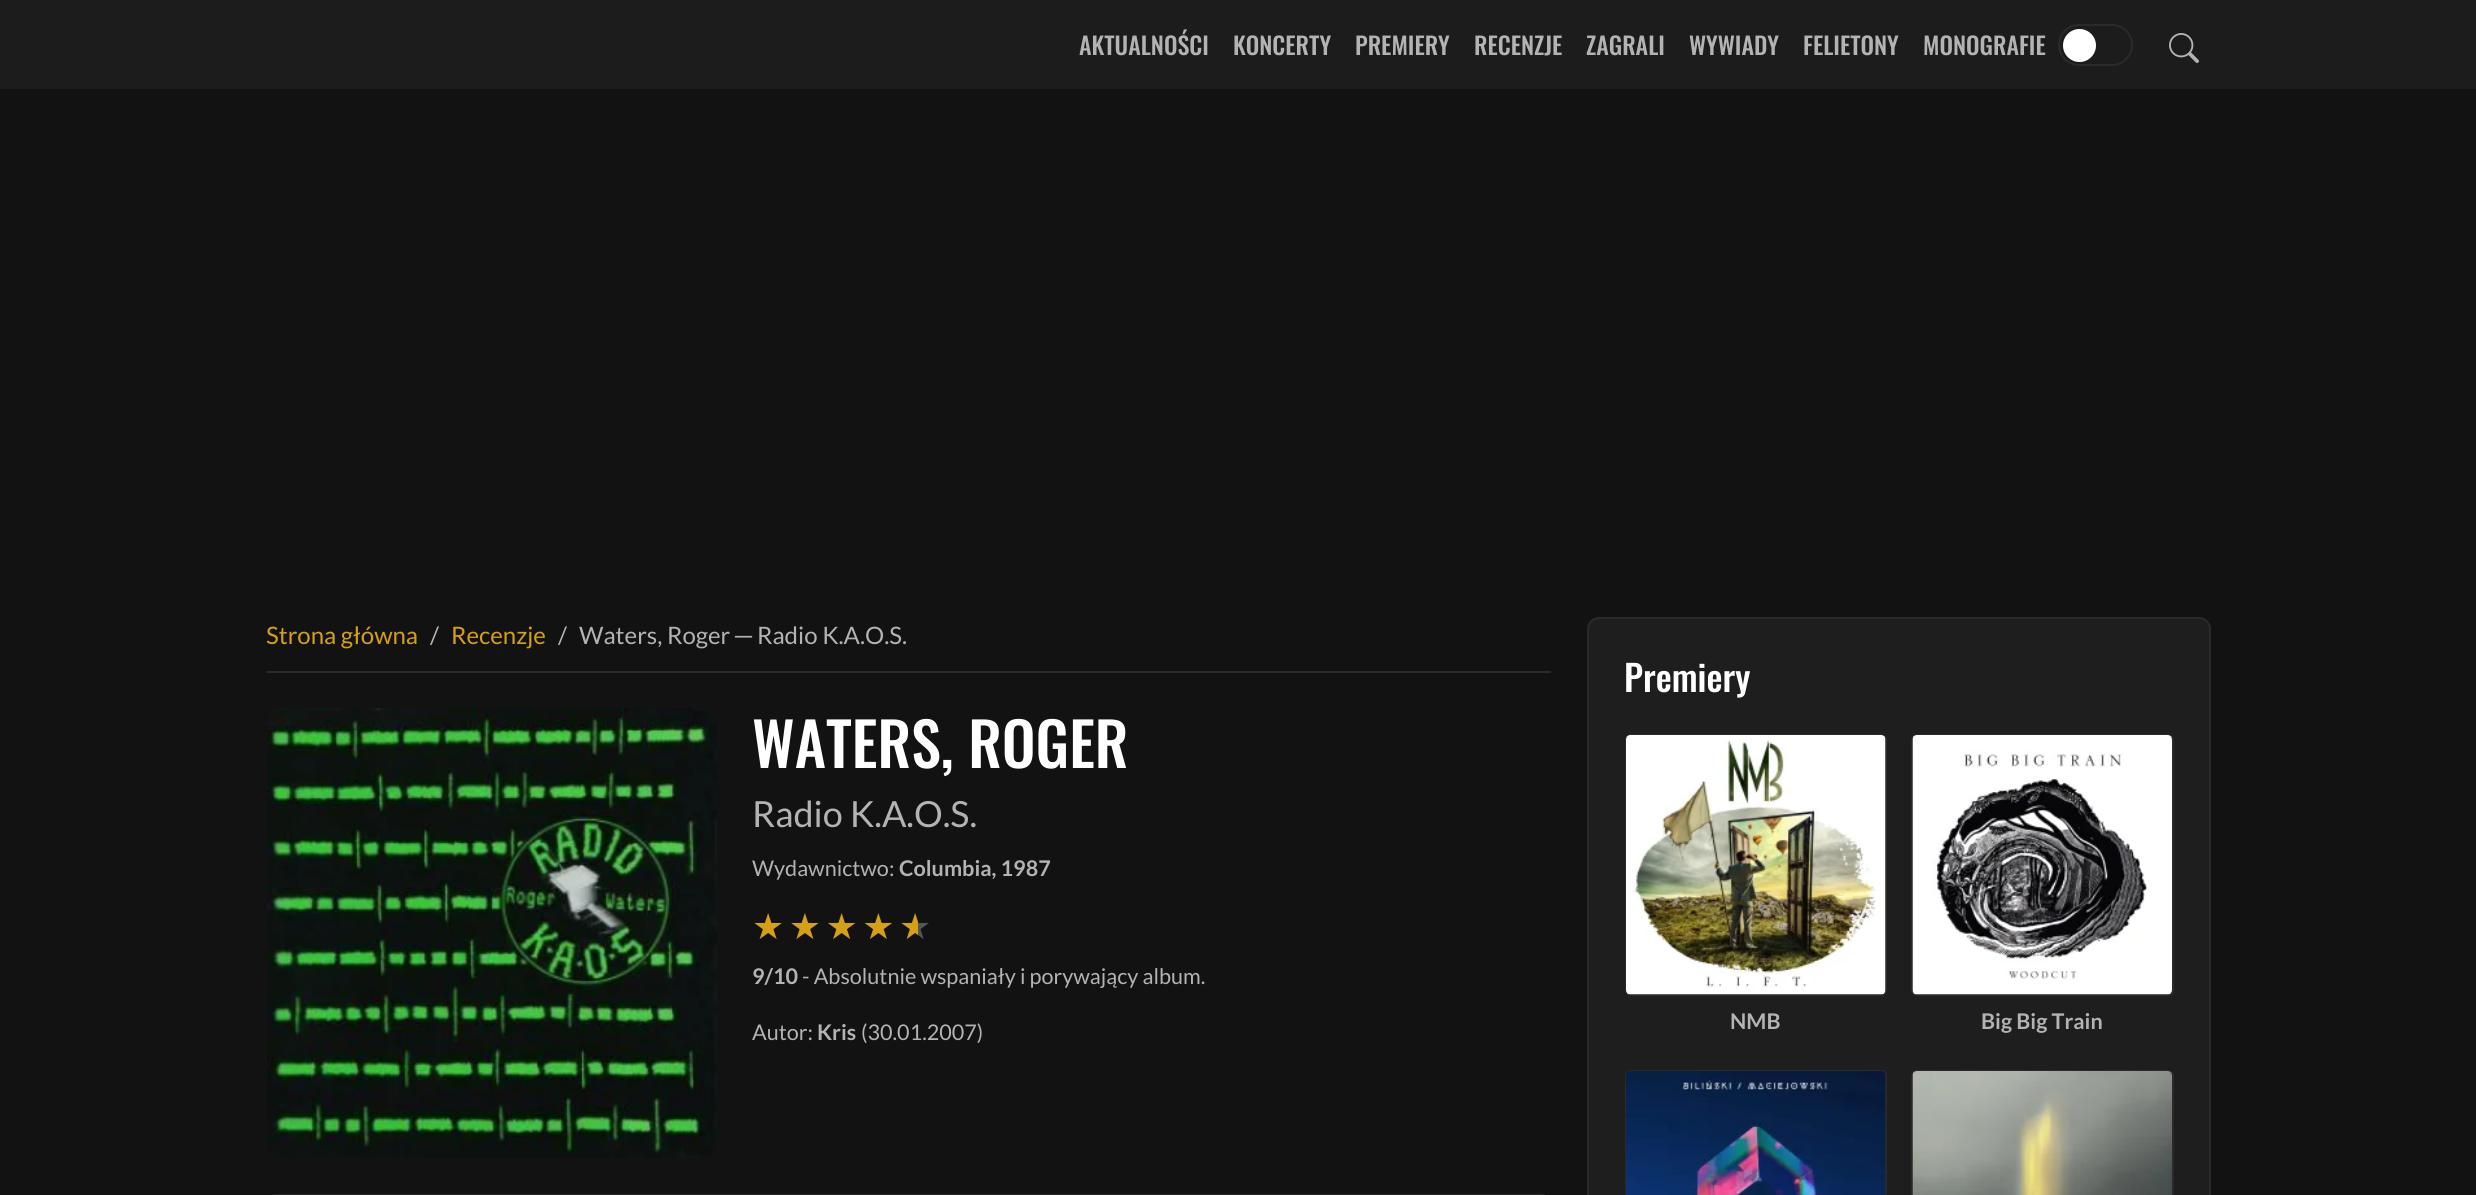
import math
import cairo


def write_spaced(ctx, x, y, s, letter, word):
	ctx.move_to(x, y)
	for ch in s:
		ctx.show_text(ch)
		ctx.rel_move_to(letter + word * (ch == ' '), 0)

def round_path(ctx, x, y, w, h, r):
	ctx.new_sub_path()
	for i, (u, v) in enumerate([(x + w - r, y + h - r), (x + r, y + h - r), (x + r, y + r), (x + w - r, y + r)]):
		ctx.arc(u, v, r, i * math.pi / 2, (i + 1) * math.pi / 2)
	ctx.close_path()

def paste(ctx, path, x, y, w, h):
	ctx.save()
	ctx.set_source_surface(cairo.ImageSurface.create_from_png(path), x, y)
	ctx.rectangle(x, y, w, h)
	ctx.fill()
	ctx.restore()

def draw(ctx):
	ctx.set_source_rgb(0.071, 0.071, 0.071)
	ctx.paint()
	ctx.set_source_rgb(0.11, 0.11, 0.11)
	ctx.rectangle(0, 0, 2476, 89)
	ctx.fill()
	ctx.select_font_face('Oswald Medium')
	ctx.set_font_size(24)
	ctx.set_source_rgb(0.702, 0.702, 0.702)
	for x, y, s in [
		(1079, 55, 'AKTUALNOŚCI'),
		(1233, 55, 'KONCERTY'),
		(1355, 55, 'PREMIERY'),
		(1474, 55, 'RECENZJE'),
		(1586, 55, 'ZAGRALI'),
		(1689, 55, 'WYWIADY'),
		(1803, 55, 'FELIETONY'),
		(1923, 55, 'MONOGRAFIE'),
	]:
		ctx.move_to(x, y)
		ctx.show_text(s)
	round_path(ctx, 2059, 25, 73, 40, 20)
	ctx.set_source_rgb(0.165, 0.165, 0.165)
	ctx.stroke()
	ctx.set_source_rgb(1, 1, 1)
	ctx.arc(2079.5, 45.5, 16.5, 0, 2 * math.pi)
	ctx.fill()
	paste(ctx, 'media/1.png', 2169, 33, 30, 30)
	ctx.set_source_rgb(0.165, 0.165, 0.165)
	ctx.rectangle(267, 671, 1284, 2)
	ctx.fill()
	ctx.select_font_face('Lato')
	ctx.set_source_rgb(0.831, 0.627, 0.09)
	ctx.move_to(266, 644)
	ctx.show_text('Strona główna')
	ctx.set_source_rgb(0.702, 0.702, 0.702)
	ctx.move_to(430, 644)
	ctx.show_text('/')
	ctx.set_source_rgb(0.831, 0.627, 0.09)
	ctx.move_to(451, 644)
	ctx.show_text('Recenzje')
	ctx.set_source_rgb(0.702, 0.702, 0.702)
	ctx.move_to(558, 644)
	ctx.show_text('/')
	ctx.move_to(579, 644)
	ctx.show_text('Waters, Roger')
	ctx.select_font_face('Liberation Sans')
	ctx.move_to(735, 644)
	ctx.show_text('─')
	ctx.select_font_face('Lato')
	ctx.move_to(757, 644)
	ctx.show_text('Radio K.A.O.S.')
	paste(ctx, 'media/2.png', 267, 708, 450, 450)
	ctx.select_font_face('Oswald Medium')
	ctx.set_font_size(60)
	ctx.set_source_rgb(1, 1, 1)
	ctx.move_to(752, 768)
	ctx.show_text('WATERS, ROGER')
	ctx.select_font_face('Lato')
	ctx.set_font_size(36)
	ctx.set_source_rgb(0.702, 0.702, 0.702)
	ctx.move_to(752, 827)
	ctx.show_text('Radio K.A.O.S.')
	ctx.set_font_size(21.6)
	ctx.move_to(752, 876)
	ctx.show_text('Wydawnictwo:')
	ctx.select_font_face('Lato', cairo.FONT_SLANT_NORMAL, cairo.FONT_WEIGHT_BOLD)
	ctx.move_to(899, 876)
	ctx.show_text('Columbia, 1987')
	ctx.select_font_face('DejaVu Sans')
	ctx.set_font_size(36)
	gradient = cairo.LinearGradient(752, 927, 936, 927)
	gradient.add_color_stop_rgba(0.9, 0.831, 0.627, 0.09, 1)
	gradient.add_color_stop_rgba(0.9, 0.333, 0.333, 0.333, 1)
	ctx.set_source(gradient)
	write_spaced(ctx, 752, 939, '★★★★★', 4.5, 0)
	ctx.select_font_face('Lato', cairo.FONT_SLANT_NORMAL, cairo.FONT_WEIGHT_BOLD)
	ctx.set_font_size(21.6)
	ctx.set_source_rgb(0.702, 0.702, 0.702)
	ctx.move_to(752, 984)
	ctx.show_text('9/10')
	ctx.select_font_face('Lato')
	ctx.move_to(802, 984)
	ctx.show_text('- Absolutnie wspaniały i porywający album.')
	ctx.move_to(752, 1040)
	ctx.show_text('Autor:')
	ctx.select_font_face('Lato', cairo.FONT_SLANT_NORMAL, cairo.FONT_WEIGHT_BOLD)
	ctx.move_to(817, 1040)
	ctx.show_text('Kris')
	ctx.select_font_face('Lato')
	ctx.move_to(861, 1040)
	ctx.show_text('(30.01.2007)')
	round_path(ctx, 268, 1195, 1282, 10, 8)
	ctx.set_source_rgb(0.165, 0.165, 0.165)
	ctx.stroke()
	ctx.set_source_rgb(0.118, 0.118, 0.118)
	round_path(ctx, 1588, 618, 622, 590, 11)
	ctx.fill_preserve()
	ctx.set_source_rgb(0.165, 0.165, 0.165)
	ctx.stroke()
	ctx.select_font_face('Oswald Medium')
	ctx.set_font_size(36)
	ctx.set_source_rgb(1, 1, 1)
	ctx.move_to(1624, 692)
	ctx.show_text('Premiery')
	round_path(ctx, 1626, 735, 260, 260, 5)
	ctx.set_source_rgb(0.165, 0.165, 0.165)
	ctx.stroke()
	paste(ctx, 'media/3.png', 1626, 735, 260, 260)
	ctx.select_font_face('Lato', cairo.FONT_SLANT_NORMAL, cairo.FONT_WEIGHT_BOLD)
	ctx.set_font_size(21.6)
	ctx.set_source_rgb(0.702, 0.702, 0.702)
	ctx.move_to(1730, 1029)
	ctx.show_text('NMB')
	round_path(ctx, 1912, 735, 261, 260, 5)
	ctx.set_source_rgb(0.165, 0.165, 0.165)
	ctx.stroke()
	paste(ctx, 'media/4.png', 1912, 735, 260, 260)
	ctx.set_source_rgb(0.702, 0.702, 0.702)
	ctx.move_to(1981, 1029)
	ctx.show_text('Big Big Train')
	round_path(ctx, 1626, 1071, 260, 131, 5)
	ctx.set_source_rgb(0.165, 0.165, 0.165)
	ctx.stroke()
	paste(ctx, 'media/5.png', 1626, 1071, 260, 124)
	round_path(ctx, 1912, 1071, 261, 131, 5)
	ctx.stroke()
	paste(ctx, 'media/6.png', 1912, 1071, 260, 124)


surface = cairo.ImageSurface(cairo.FORMAT_RGB24, 2476, 1195)
ctx = cairo.Context(surface)
options = cairo.FontOptions()
options.set_hint_metrics(cairo.HINT_METRICS_OFF)
options.set_hint_style(cairo.HINT_STYLE_NONE)
ctx.set_font_options(options)
ctx.set_miter_limit(4)
draw(ctx)
surface.write_to_png('image.png')
